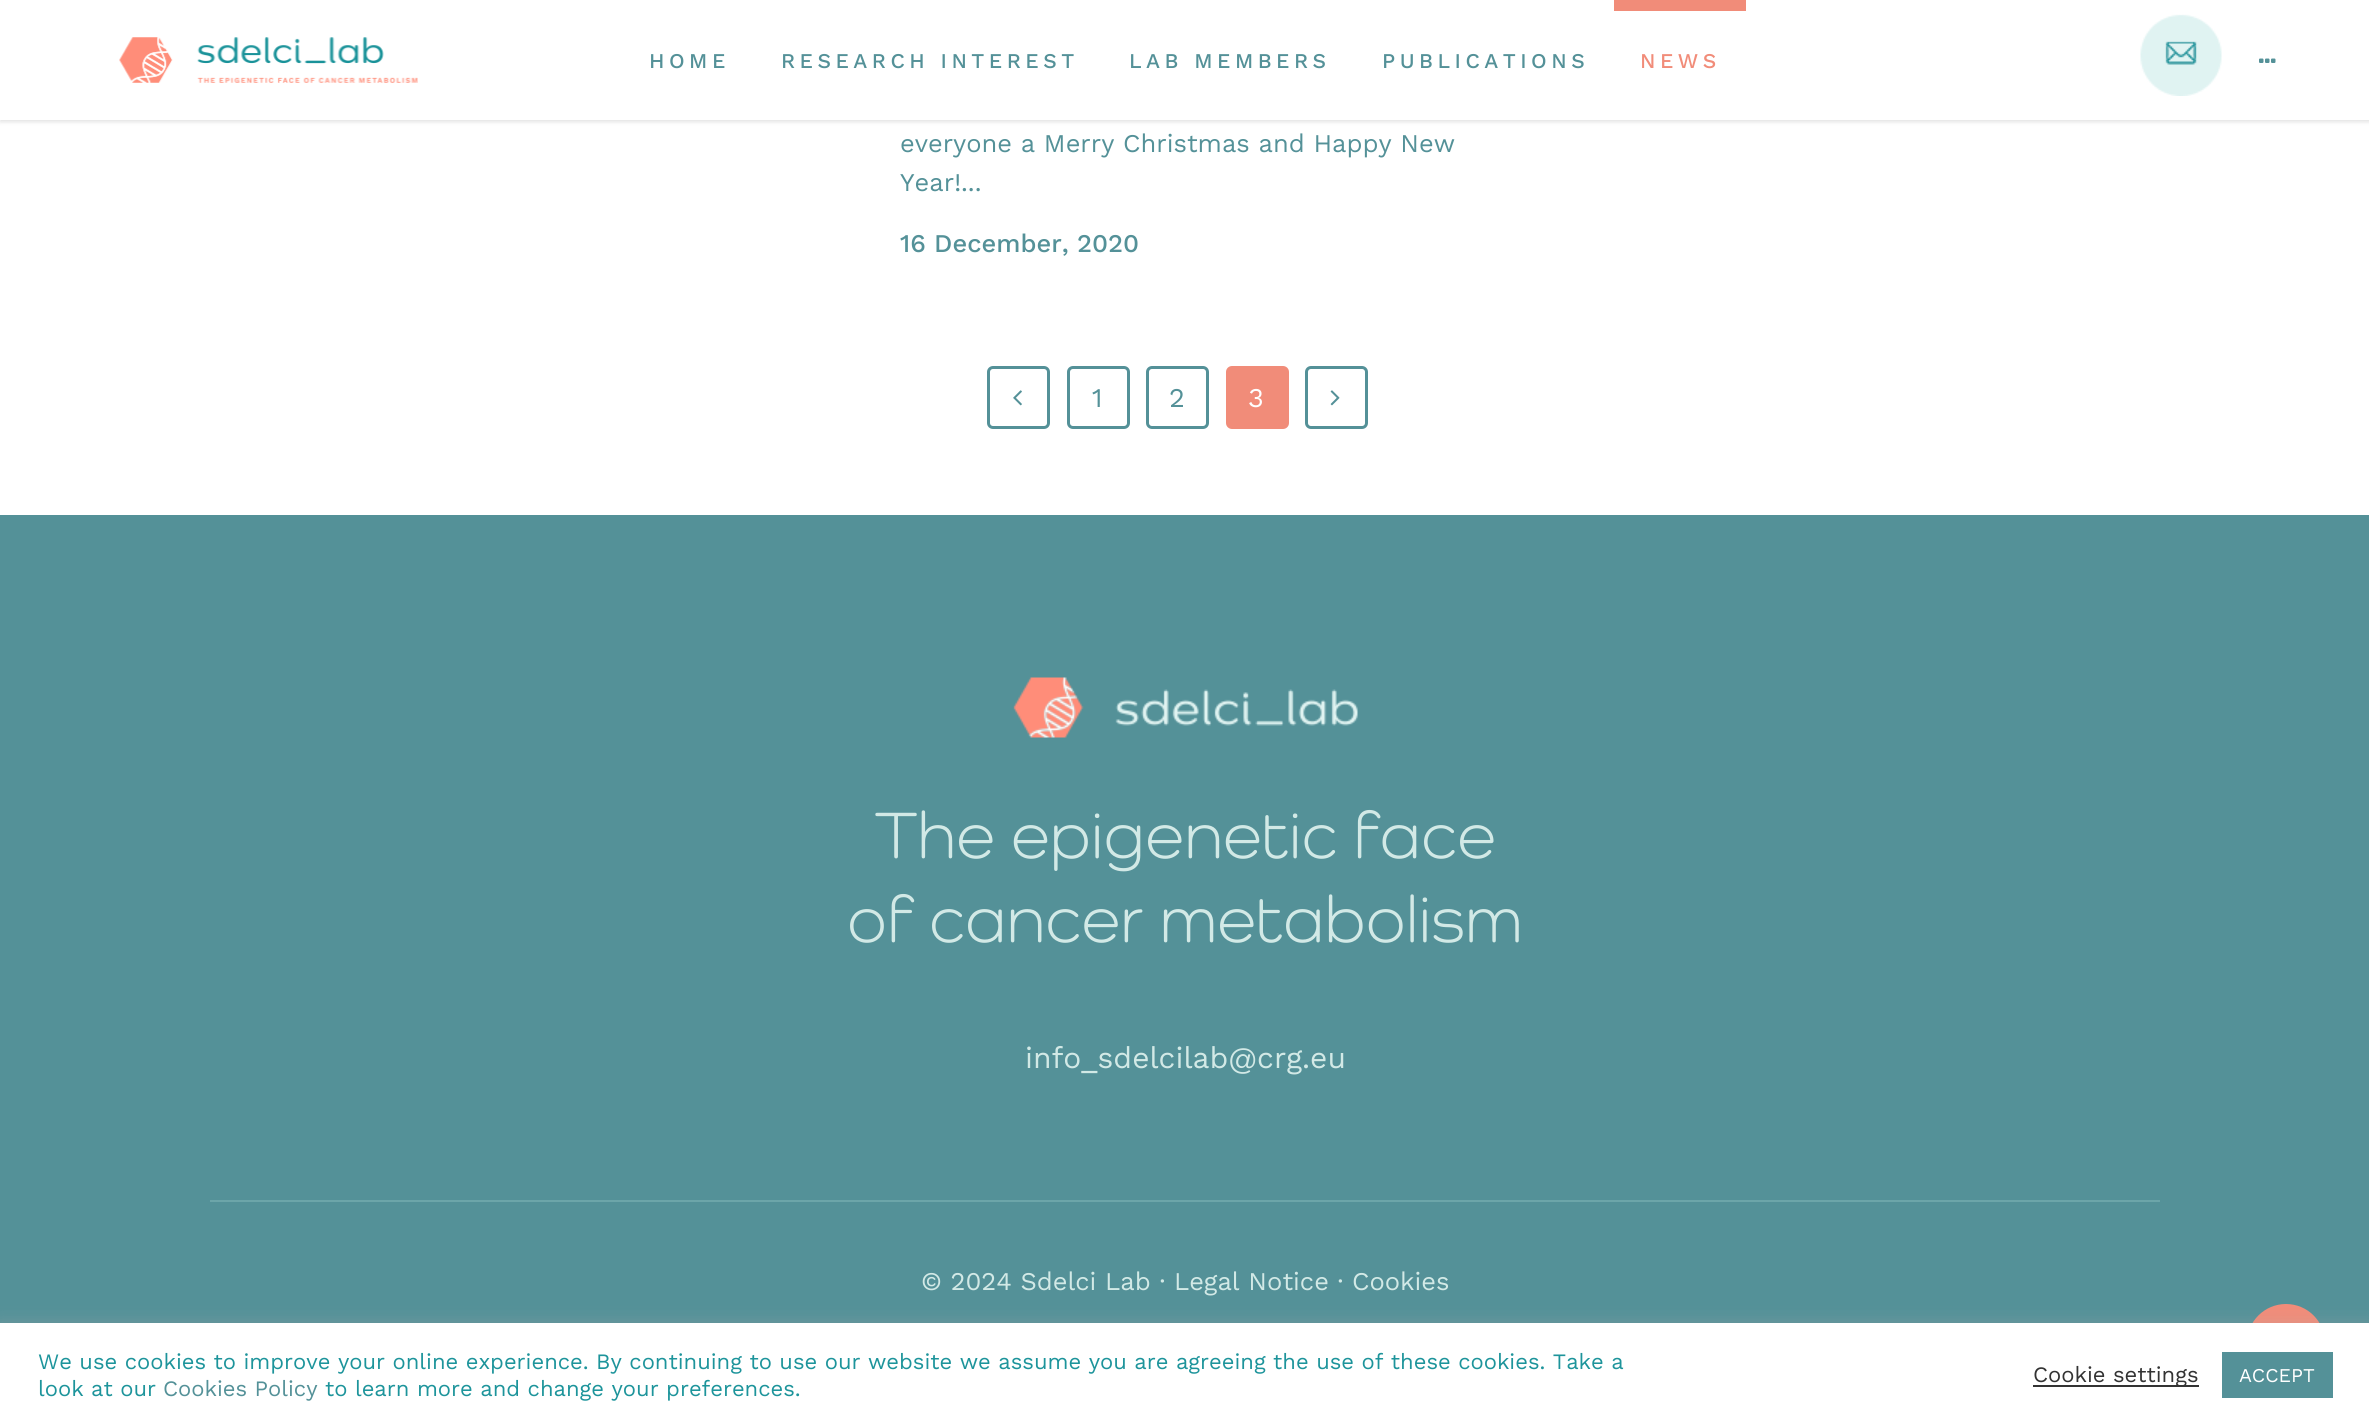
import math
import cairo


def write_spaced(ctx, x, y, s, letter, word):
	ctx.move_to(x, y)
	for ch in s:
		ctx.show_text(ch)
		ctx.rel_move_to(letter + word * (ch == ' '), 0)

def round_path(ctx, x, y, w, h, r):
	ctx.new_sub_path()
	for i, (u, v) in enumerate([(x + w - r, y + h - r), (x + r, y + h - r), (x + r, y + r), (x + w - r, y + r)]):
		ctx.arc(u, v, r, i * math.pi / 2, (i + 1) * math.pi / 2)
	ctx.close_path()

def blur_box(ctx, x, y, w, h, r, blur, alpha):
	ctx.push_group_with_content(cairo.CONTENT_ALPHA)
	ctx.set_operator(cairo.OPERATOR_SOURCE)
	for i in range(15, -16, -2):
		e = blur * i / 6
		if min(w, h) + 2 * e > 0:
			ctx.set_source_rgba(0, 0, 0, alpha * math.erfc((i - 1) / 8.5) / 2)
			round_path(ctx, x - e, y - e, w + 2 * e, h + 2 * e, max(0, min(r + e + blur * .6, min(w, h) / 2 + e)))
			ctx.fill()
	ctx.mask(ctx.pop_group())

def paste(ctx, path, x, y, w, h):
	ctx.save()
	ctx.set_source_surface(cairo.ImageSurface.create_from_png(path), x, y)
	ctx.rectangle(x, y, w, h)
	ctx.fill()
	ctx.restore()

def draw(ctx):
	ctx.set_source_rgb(1, 1, 1)
	ctx.paint()
	ctx.set_source_rgb(0, 0, 0)
	blur_box(ctx, 0, 2, 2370, 120, 0, 2, 0.11)
	ctx.set_source_rgb(1, 1, 1)
	ctx.rectangle(0, 0, 2369, 120)
	ctx.fill()
	paste(ctx, 'media/1.png', 119, 37, 299, 46)
	ctx.select_font_face('Work Sans Medium')
	ctx.set_font_size(21)
	ctx.set_source_rgb(0.329, 0.569, 0.596)
	for x, y, s in [
		(649, 68, 'HOME'),
		(781, 68, 'RESEARCH INTEREST'),
		(1129, 68, 'LAB MEMBERS'),
		(1382, 68, 'PUBLICATIONS'),
	]:
		write_spaced(ctx, x, y, s, 4.5, 0)
	ctx.set_source_rgb(0.945, 0.549, 0.475)
	ctx.rectangle(1614, 0, 132, 11)
	ctx.fill()
	write_spaced(ctx, 1640, 68, 'NEWS', 4.5, 0)
	paste(ctx, 'media/2.png', 2140, 14, 82, 82)
	paste(ctx, 'media/3.png', 2259, 58, 17, 5)
	ctx.select_font_face('Work Sans')
	ctx.set_font_size(25.5)
	ctx.set_source_rgb(0.329, 0.569, 0.596)
	ctx.move_to(900, 152)
	ctx.show_text('everyone a Merry Christmas and Happy New')
	ctx.move_to(900, 191)
	ctx.show_text('Year!...')
	ctx.select_font_face('Work Sans Medium')
	ctx.move_to(900, 252)
	ctx.show_text('16 December, 2020')
	round_path(ctx, 988.5, 367.5, 60, 60, 4.5)
	ctx.set_line_width(3)
	ctx.stroke()
	paste(ctx, 'media/4.png', 1013, 390, 9, 16)
	round_path(ctx, 1068.5, 367.5, 60, 60, 4.5)
	ctx.stroke()
	ctx.select_font_face('Work Sans')
	ctx.set_font_size(27)
	ctx.move_to(1092, 407)
	ctx.show_text('1')
	round_path(ctx, 1147.5, 367.5, 60, 60, 4.5)
	ctx.stroke()
	ctx.move_to(1169, 407)
	ctx.show_text('2')
	ctx.set_source_rgb(0.945, 0.549, 0.475)
	round_path(ctx, 1227.5, 367.5, 60, 60, 4.5)
	ctx.fill_preserve()
	ctx.stroke()
	ctx.set_source_rgb(1, 1, 1)
	ctx.move_to(1248, 407)
	ctx.show_text('3')
	round_path(ctx, 1306.5, 367.5, 60, 60, 4.5)
	ctx.set_source_rgb(0.329, 0.569, 0.596)
	ctx.stroke()
	paste(ctx, 'media/5.png', 1330, 390, 10, 16)
	ctx.rectangle(0, 515, 2369, 808)
	ctx.fill()
	paste(ctx, 'media/6.png', 1013, 677, 345, 61)
	ctx.select_font_face('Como')
	ctx.set_font_size(67.5)
	ctx.set_source_rgb(0.824, 0.914, 0.902)
	ctx.move_to(875, 858)
	ctx.show_text('The epigenetic face')
	ctx.move_to(847, 942)
	ctx.show_text('of cancer metabolism')
	ctx.select_font_face('Work Sans')
	ctx.set_font_size(30)
	ctx.move_to(1025, 1068)
	ctx.show_text('info_sdelcilab@crg.eu')
	ctx.set_source_rgb(0.424, 0.647, 0.663)
	ctx.rectangle(210, 1200, 1950, 2)
	ctx.fill()
	ctx.set_font_size(25.5)
	ctx.set_source_rgb(0.824, 0.914, 0.902)
	ctx.move_to(921, 1290)
	ctx.show_text('© 2024 Sdelci Lab · Legal Notice · Cookies')
	ctx.set_source_rgb(0.945, 0.549, 0.475)
	ctx.new_path()
	ctx.arc(2286, 1343, 39, 0, 2 * math.pi)
	ctx.fill()
	ctx.set_source_rgb(0.675, 0.671, 0.671)
	blur_box(ctx, 0, 1322, 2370, 103, 0, 7.5, 0.3)
	ctx.set_source_rgb(1, 1, 1)
	ctx.rectangle(0, 1323, 2369, 103)
	ctx.fill()
	ctx.set_font_size(22)
	ctx.set_source_rgb(0.114, 0.58, 0.608)
	ctx.move_to(38, 1369)
	ctx.show_text('We use cookies to improve your online experience. By continuing to use our website we assume you are agreeing the use of these cookies. Take a')
	ctx.move_to(38, 1396)
	ctx.show_text('look at our')
	ctx.set_source_rgb(0.329, 0.569, 0.596)
	ctx.move_to(163, 1396)
	ctx.show_text('Cookies Policy')
	ctx.set_source_rgb(0.114, 0.58, 0.608)
	ctx.move_to(325, 1396)
	ctx.show_text('to learn more and change your preferences.')
	ctx.set_source_rgb(0.2, 0.2, 0.2)
	ctx.rectangle(2033, 1385, 166, 2)
	ctx.fill()
	ctx.move_to(2033, 1382)
	ctx.show_text('Cookie settings')
	ctx.set_source_rgb(0.329, 0.569, 0.596)
	ctx.rectangle(2222, 1352, 111, 46)
	ctx.fill()
	ctx.set_font_size(19.5)
	ctx.set_source_rgb(1, 1, 1)
	ctx.move_to(2239, 1382)
	ctx.show_text('ACCEPT')


surface = cairo.ImageSurface(cairo.FORMAT_RGB24, 2369, 1426)
ctx = cairo.Context(surface)
options = cairo.FontOptions()
options.set_hint_metrics(cairo.HINT_METRICS_OFF)
options.set_hint_style(cairo.HINT_STYLE_NONE)
ctx.set_font_options(options)
ctx.set_miter_limit(4)
draw(ctx)
surface.write_to_png('image.png')
